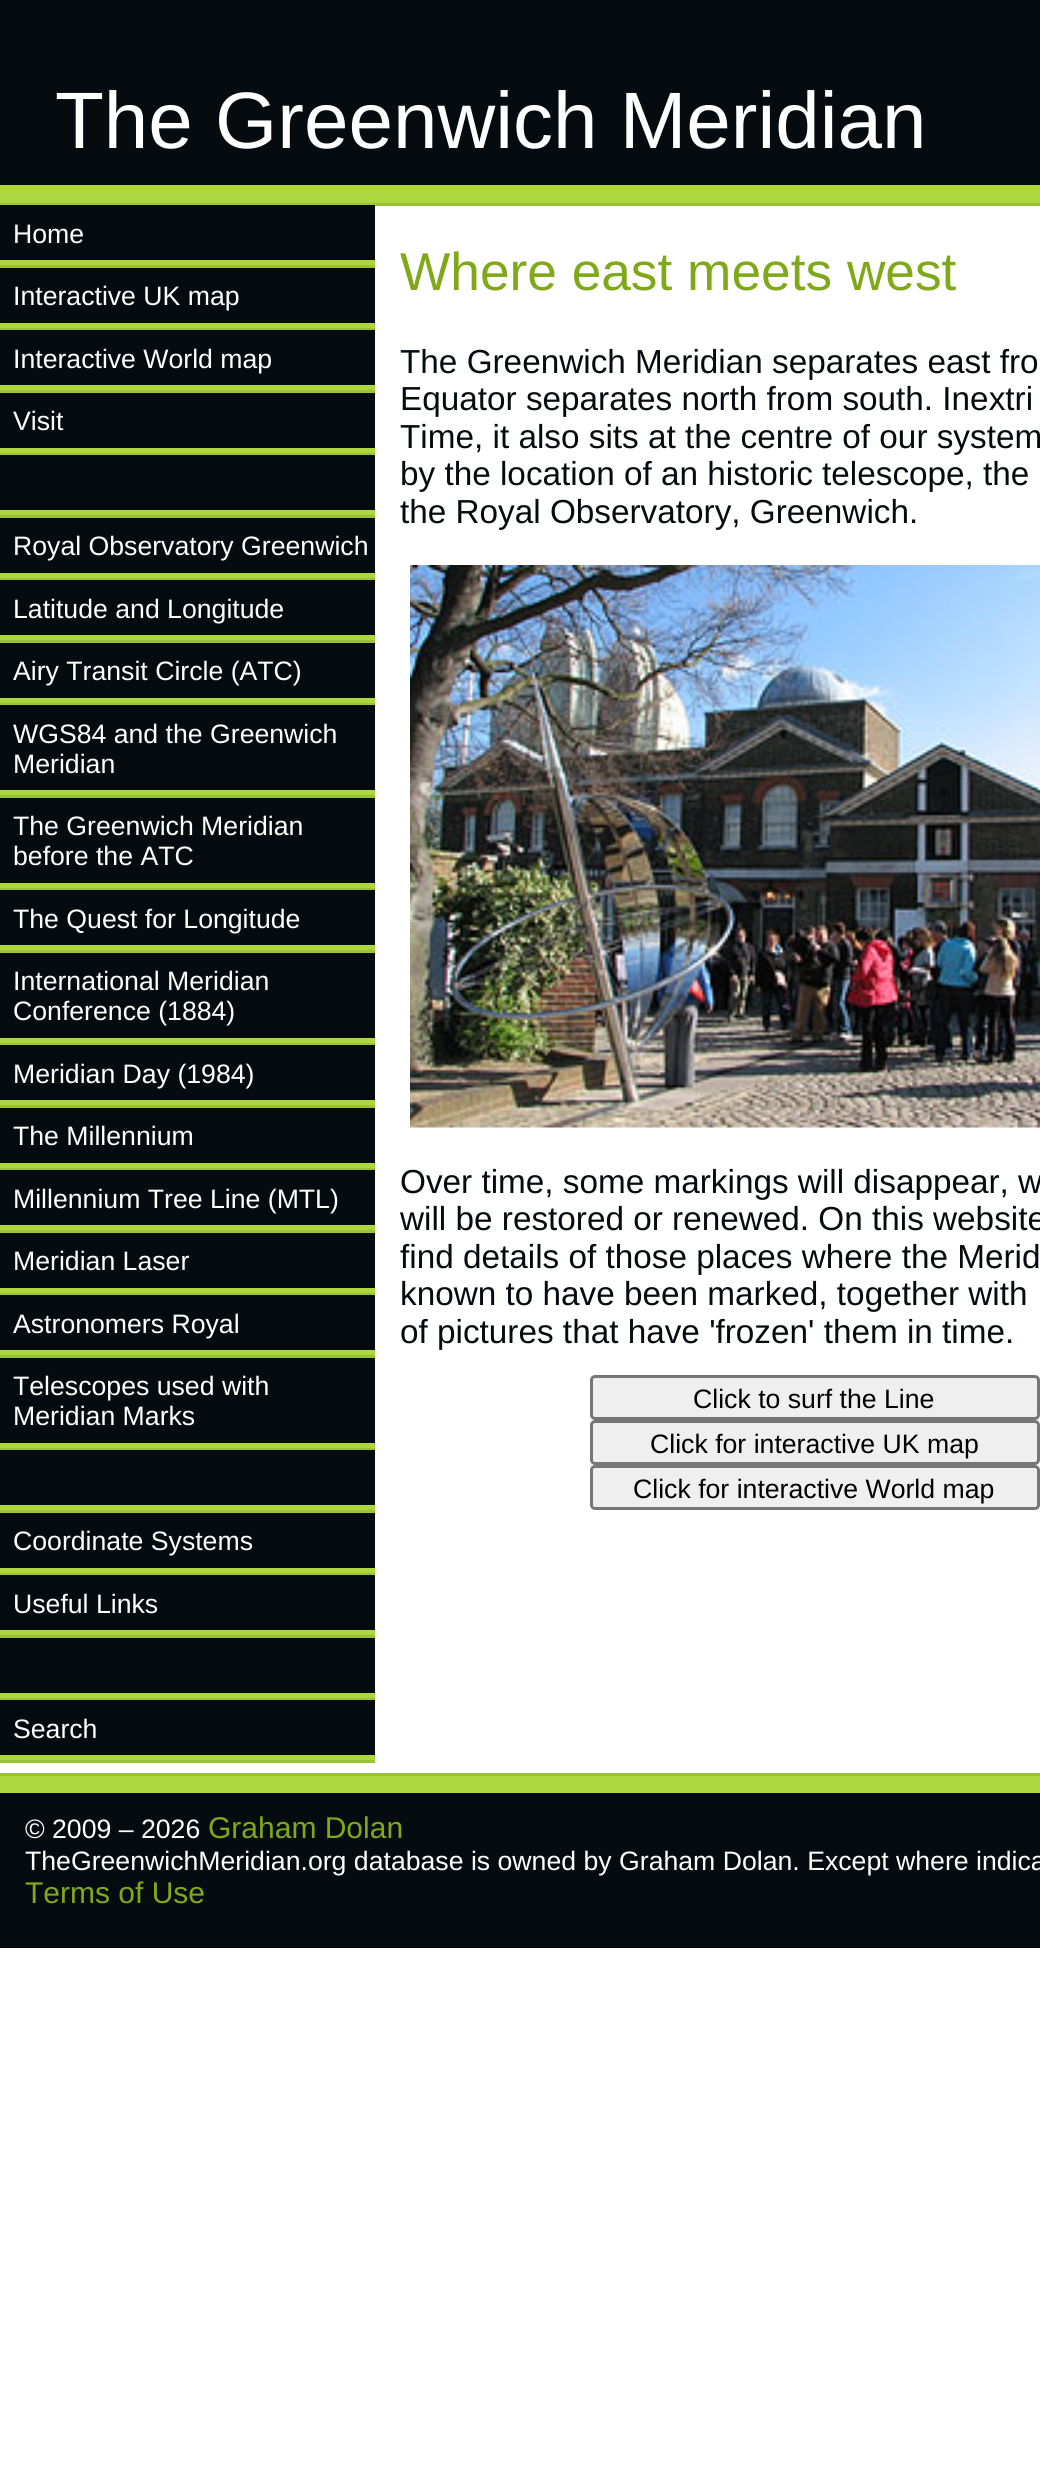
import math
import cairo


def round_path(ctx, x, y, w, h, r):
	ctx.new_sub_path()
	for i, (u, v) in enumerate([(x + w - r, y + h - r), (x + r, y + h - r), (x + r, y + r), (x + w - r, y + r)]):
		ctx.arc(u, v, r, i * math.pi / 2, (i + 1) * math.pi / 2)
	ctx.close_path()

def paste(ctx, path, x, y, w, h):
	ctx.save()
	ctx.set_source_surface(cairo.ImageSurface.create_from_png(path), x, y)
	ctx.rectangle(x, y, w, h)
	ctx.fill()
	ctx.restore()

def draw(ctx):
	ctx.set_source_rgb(1, 1, 1)
	ctx.paint()
	ctx.set_source_rgb(0.027, 0.043, 0.059)
	ctx.rectangle(0, 0, 1040, 185)
	ctx.fill()
	ctx.select_font_face('Liberation Sans')
	ctx.set_font_size(80)
	ctx.set_source_rgb(1, 1, 1)
	ctx.move_to(55, 148)
	ctx.show_text('The Greenwich Meridian')
	ctx.set_source_rgb(0.675, 0.847, 0.243)
	ctx.rectangle(0, 185, 1040, 18)
	ctx.fill()
	ctx.set_source_rgb(0.604, 0.761, 0.216)
	ctx.rectangle(0, 203, 1040, 3)
	ctx.fill()
	ctx.set_source_rgb(0.027, 0.043, 0.059)
	ctx.rectangle(0, 205, 375, 55)
	ctx.fill()
	ctx.set_font_size(26.65)
	ctx.set_source_rgb(1, 1, 1)
	ctx.move_to(13, 243)
	ctx.show_text('Home')
	ctx.set_source_rgb(0.675, 0.847, 0.243)
	ctx.rectangle(0, 260, 375, 5)
	ctx.fill()
	ctx.set_source_rgb(0.604, 0.761, 0.216)
	ctx.rectangle(0, 265, 375, 3)
	ctx.fill()
	ctx.set_source_rgb(0.027, 0.043, 0.059)
	ctx.rectangle(0, 268, 375, 55)
	ctx.fill()
	ctx.set_source_rgb(1, 1, 1)
	ctx.move_to(13, 305)
	ctx.show_text('Interactive UK map')
	ctx.set_source_rgb(0.675, 0.847, 0.243)
	ctx.rectangle(0, 323, 375, 5)
	ctx.fill()
	ctx.set_source_rgb(0.604, 0.761, 0.216)
	ctx.rectangle(0, 328, 375, 2)
	ctx.fill()
	ctx.set_source_rgb(0.027, 0.043, 0.059)
	ctx.rectangle(0, 330, 375, 55)
	ctx.fill()
	ctx.set_source_rgb(1, 1, 1)
	ctx.move_to(13, 368)
	ctx.show_text('Interactive World map')
	ctx.set_source_rgb(0.675, 0.847, 0.243)
	ctx.rectangle(0, 385, 375, 5)
	ctx.fill()
	ctx.set_source_rgb(0.604, 0.761, 0.216)
	ctx.rectangle(0, 390, 375, 3)
	ctx.fill()
	ctx.set_source_rgb(0.027, 0.043, 0.059)
	ctx.rectangle(0, 393, 375, 55)
	ctx.fill()
	ctx.set_source_rgb(1, 1, 1)
	ctx.move_to(13, 430)
	ctx.show_text('Visit')
	ctx.set_source_rgb(0.675, 0.847, 0.243)
	ctx.rectangle(0, 448, 375, 5)
	ctx.fill()
	ctx.set_source_rgb(0.604, 0.761, 0.216)
	ctx.rectangle(0, 453, 375, 2)
	ctx.fill()
	ctx.set_source_rgb(0.027, 0.043, 0.059)
	ctx.rectangle(0, 455, 375, 55)
	ctx.fill()
	ctx.set_source_rgb(0.675, 0.847, 0.243)
	ctx.rectangle(0, 510, 375, 5)
	ctx.fill()
	ctx.set_source_rgb(0.604, 0.761, 0.216)
	ctx.rectangle(0, 515, 375, 3)
	ctx.fill()
	ctx.set_source_rgb(0.027, 0.043, 0.059)
	ctx.rectangle(0, 518, 375, 55)
	ctx.fill()
	ctx.set_source_rgb(1, 1, 1)
	ctx.move_to(13, 555)
	ctx.show_text('Royal Observatory Greenwich')
	ctx.set_source_rgb(0.675, 0.847, 0.243)
	ctx.rectangle(0, 573, 375, 5)
	ctx.fill()
	ctx.set_source_rgb(0.604, 0.761, 0.216)
	ctx.rectangle(0, 578, 375, 2)
	ctx.fill()
	ctx.set_source_rgb(0.027, 0.043, 0.059)
	ctx.rectangle(0, 580, 375, 55)
	ctx.fill()
	ctx.set_source_rgb(1, 1, 1)
	ctx.move_to(13, 618)
	ctx.show_text('Latitude and Longitude')
	ctx.set_source_rgb(0.675, 0.847, 0.243)
	ctx.rectangle(0, 635, 375, 5)
	ctx.fill()
	ctx.set_source_rgb(0.604, 0.761, 0.216)
	ctx.rectangle(0, 640, 375, 3)
	ctx.fill()
	ctx.set_source_rgb(0.027, 0.043, 0.059)
	ctx.rectangle(0, 643, 375, 55)
	ctx.fill()
	ctx.set_source_rgb(1, 1, 1)
	ctx.move_to(13, 680)
	ctx.show_text('Airy Transit Circle (ATC)')
	ctx.set_source_rgb(0.675, 0.847, 0.243)
	ctx.rectangle(0, 698, 375, 5)
	ctx.fill()
	ctx.set_source_rgb(0.604, 0.761, 0.216)
	ctx.rectangle(0, 703, 375, 2)
	ctx.fill()
	ctx.set_source_rgb(0.027, 0.043, 0.059)
	ctx.rectangle(0, 705, 375, 85)
	ctx.fill()
	ctx.set_source_rgb(1, 1, 1)
	ctx.move_to(13, 743)
	ctx.show_text('WGS84 and the Greenwich')
	ctx.move_to(13, 773)
	ctx.show_text('Meridian')
	ctx.set_source_rgb(0.675, 0.847, 0.243)
	ctx.rectangle(0, 790, 375, 5)
	ctx.fill()
	ctx.set_source_rgb(0.604, 0.761, 0.216)
	ctx.rectangle(0, 795, 375, 3)
	ctx.fill()
	ctx.set_source_rgb(0.027, 0.043, 0.059)
	ctx.rectangle(0, 798, 375, 85)
	ctx.fill()
	ctx.set_source_rgb(1, 1, 1)
	ctx.move_to(13, 835)
	ctx.show_text('The Greenwich Meridian')
	ctx.move_to(13, 865)
	ctx.show_text('before the ATC')
	ctx.set_source_rgb(0.675, 0.847, 0.243)
	ctx.rectangle(0, 883, 375, 5)
	ctx.fill()
	ctx.set_source_rgb(0.604, 0.761, 0.216)
	ctx.rectangle(0, 888, 375, 2)
	ctx.fill()
	ctx.set_source_rgb(0.027, 0.043, 0.059)
	ctx.rectangle(0, 890, 375, 55)
	ctx.fill()
	ctx.set_source_rgb(1, 1, 1)
	ctx.move_to(13, 928)
	ctx.show_text('The Quest for Longitude')
	ctx.set_source_rgb(0.675, 0.847, 0.243)
	ctx.rectangle(0, 945, 375, 5)
	ctx.fill()
	ctx.set_source_rgb(0.604, 0.761, 0.216)
	ctx.rectangle(0, 950, 375, 3)
	ctx.fill()
	ctx.set_source_rgb(0.027, 0.043, 0.059)
	ctx.rectangle(0, 953, 375, 85)
	ctx.fill()
	ctx.set_source_rgb(1, 1, 1)
	ctx.move_to(13, 990)
	ctx.show_text('International Meridian')
	ctx.move_to(13, 1020)
	ctx.show_text('Conference (1884)')
	ctx.set_source_rgb(0.675, 0.847, 0.243)
	ctx.rectangle(0, 1038, 375, 5)
	ctx.fill()
	ctx.set_source_rgb(0.604, 0.761, 0.216)
	ctx.rectangle(0, 1043, 375, 2)
	ctx.fill()
	ctx.set_source_rgb(0.027, 0.043, 0.059)
	ctx.rectangle(0, 1045, 375, 55)
	ctx.fill()
	ctx.set_source_rgb(1, 1, 1)
	ctx.move_to(13, 1083)
	ctx.show_text('Meridian Day (1984)')
	ctx.set_source_rgb(0.675, 0.847, 0.243)
	ctx.rectangle(0, 1100, 375, 5)
	ctx.fill()
	ctx.set_source_rgb(0.604, 0.761, 0.216)
	ctx.rectangle(0, 1105, 375, 3)
	ctx.fill()
	ctx.set_source_rgb(0.027, 0.043, 0.059)
	ctx.rectangle(0, 1108, 375, 55)
	ctx.fill()
	ctx.set_source_rgb(1, 1, 1)
	ctx.move_to(13, 1145)
	ctx.show_text('The Millennium')
	ctx.set_source_rgb(0.675, 0.847, 0.243)
	ctx.rectangle(0, 1163, 375, 5)
	ctx.fill()
	ctx.set_source_rgb(0.604, 0.761, 0.216)
	ctx.rectangle(0, 1168, 375, 2)
	ctx.fill()
	ctx.set_source_rgb(0.027, 0.043, 0.059)
	ctx.rectangle(0, 1170, 375, 55)
	ctx.fill()
	ctx.set_source_rgb(1, 1, 1)
	ctx.move_to(13, 1208)
	ctx.show_text('Millennium Tree Line (MTL)')
	ctx.set_source_rgb(0.675, 0.847, 0.243)
	ctx.rectangle(0, 1225, 375, 5)
	ctx.fill()
	ctx.set_source_rgb(0.604, 0.761, 0.216)
	ctx.rectangle(0, 1230, 375, 3)
	ctx.fill()
	ctx.set_source_rgb(0.027, 0.043, 0.059)
	ctx.rectangle(0, 1233, 375, 55)
	ctx.fill()
	ctx.set_source_rgb(1, 1, 1)
	ctx.move_to(13, 1270)
	ctx.show_text('Meridian Laser')
	ctx.set_source_rgb(0.675, 0.847, 0.243)
	ctx.rectangle(0, 1288, 375, 5)
	ctx.fill()
	ctx.set_source_rgb(0.604, 0.761, 0.216)
	ctx.rectangle(0, 1293, 375, 2)
	ctx.fill()
	ctx.set_source_rgb(0.027, 0.043, 0.059)
	ctx.rectangle(0, 1295, 375, 55)
	ctx.fill()
	ctx.set_source_rgb(1, 1, 1)
	ctx.move_to(13, 1333)
	ctx.show_text('Astronomers Royal')
	ctx.set_source_rgb(0.675, 0.847, 0.243)
	ctx.rectangle(0, 1350, 375, 5)
	ctx.fill()
	ctx.set_source_rgb(0.604, 0.761, 0.216)
	ctx.rectangle(0, 1355, 375, 3)
	ctx.fill()
	ctx.set_source_rgb(0.027, 0.043, 0.059)
	ctx.rectangle(0, 1358, 375, 85)
	ctx.fill()
	ctx.set_source_rgb(1, 1, 1)
	ctx.move_to(13, 1395)
	ctx.show_text('Telescopes used with')
	ctx.move_to(13, 1425)
	ctx.show_text('Meridian Marks')
	ctx.set_source_rgb(0.675, 0.847, 0.243)
	ctx.rectangle(0, 1443, 375, 5)
	ctx.fill()
	ctx.set_source_rgb(0.604, 0.761, 0.216)
	ctx.rectangle(0, 1448, 375, 2)
	ctx.fill()
	ctx.set_source_rgb(0.027, 0.043, 0.059)
	ctx.rectangle(0, 1450, 375, 55)
	ctx.fill()
	ctx.set_source_rgb(0.675, 0.847, 0.243)
	ctx.rectangle(0, 1505, 375, 5)
	ctx.fill()
	ctx.set_source_rgb(0.604, 0.761, 0.216)
	ctx.rectangle(0, 1510, 375, 3)
	ctx.fill()
	ctx.set_source_rgb(0.027, 0.043, 0.059)
	ctx.rectangle(0, 1513, 375, 55)
	ctx.fill()
	ctx.set_source_rgb(1, 1, 1)
	ctx.move_to(13, 1550)
	ctx.show_text('Coordinate Systems')
	ctx.set_source_rgb(0.675, 0.847, 0.243)
	ctx.rectangle(0, 1568, 375, 5)
	ctx.fill()
	ctx.set_source_rgb(0.604, 0.761, 0.216)
	ctx.rectangle(0, 1573, 375, 2)
	ctx.fill()
	ctx.set_source_rgb(0.027, 0.043, 0.059)
	ctx.rectangle(0, 1575, 375, 55)
	ctx.fill()
	ctx.set_source_rgb(1, 1, 1)
	ctx.move_to(13, 1613)
	ctx.show_text('Useful Links')
	ctx.set_source_rgb(0.675, 0.847, 0.243)
	ctx.rectangle(0, 1630, 375, 5)
	ctx.fill()
	ctx.set_source_rgb(0.604, 0.761, 0.216)
	ctx.rectangle(0, 1635, 375, 3)
	ctx.fill()
	ctx.set_source_rgb(0.027, 0.043, 0.059)
	ctx.rectangle(0, 1638, 375, 55)
	ctx.fill()
	ctx.set_source_rgb(0.675, 0.847, 0.243)
	ctx.rectangle(0, 1693, 375, 5)
	ctx.fill()
	ctx.set_source_rgb(0.604, 0.761, 0.216)
	ctx.rectangle(0, 1698, 375, 2)
	ctx.fill()
	ctx.set_source_rgb(0.027, 0.043, 0.059)
	ctx.rectangle(0, 1700, 375, 55)
	ctx.fill()
	ctx.set_source_rgb(1, 1, 1)
	ctx.move_to(13, 1738)
	ctx.show_text('Search')
	ctx.set_source_rgb(0.675, 0.847, 0.243)
	ctx.rectangle(0, 1755, 375, 5)
	ctx.fill()
	ctx.set_source_rgb(0.604, 0.761, 0.216)
	ctx.rectangle(0, 1760, 375, 3)
	ctx.fill()
	ctx.set_font_size(53.25)
	ctx.set_source_rgb(0.502, 0.663, 0.098)
	ctx.move_to(400, 290)
	ctx.show_text('Where east meets west')
	ctx.set_font_size(33.3)
	ctx.set_source_rgb(0.027, 0.043, 0.059)
	for x, y, s in [
		(400, 373, 'The Greenwich Meridian separates east fro'),
		(400, 410, 'Equator separates north from south. Inextri'),
		(400, 448, 'Time, it also sits at the centre of our system'),
		(400, 485, 'by the location of an historic telescope, the'),
		(400, 523, 'the Royal Observatory, Greenwich.'),
	]:
		ctx.move_to(x, y)
		ctx.show_text(s)
	paste(ctx, 'media/1.png', 410, 565, 630, 563)
	for x, y, s in [
		(400, 1193, 'Over time, some markings will disappear, w'),
		(400, 1230, 'will be restored or renewed. On this website'),
		(400, 1268, 'find details of those places where the Merid'),
		(400, 1305, 'known to have been marked, together with'),
		(400, 1343, 'of pictures that have \'frozen\' them in time.'),
	]:
		ctx.move_to(x, y)
		ctx.show_text(s)
	ctx.set_source_rgb(0.937, 0.937, 0.937)
	round_path(ctx, 591.5, 1376.5, 447, 42, 3.5)
	ctx.fill_preserve()
	ctx.set_source_rgb(0.463, 0.463, 0.463)
	ctx.set_line_width(3)
	ctx.stroke()
	ctx.set_font_size(26.65)
	ctx.set_source_rgb(0, 0, 0)
	ctx.move_to(693, 1408)
	ctx.show_text('Click to surf the Line')
	ctx.set_source_rgb(0.937, 0.937, 0.937)
	round_path(ctx, 591.5, 1421.5, 447, 42, 3.5)
	ctx.fill_preserve()
	ctx.set_source_rgb(0.463, 0.463, 0.463)
	ctx.stroke()
	ctx.set_source_rgb(0, 0, 0)
	ctx.move_to(650, 1453)
	ctx.show_text('Click for interactive UK map')
	ctx.set_source_rgb(0.937, 0.937, 0.937)
	round_path(ctx, 591.5, 1466.5, 447, 42, 3.5)
	ctx.fill_preserve()
	ctx.set_source_rgb(0.463, 0.463, 0.463)
	ctx.stroke()
	ctx.set_source_rgb(0, 0, 0)
	ctx.move_to(633, 1498)
	ctx.show_text('Click for interactive World map')
	ctx.set_source_rgb(0.675, 0.847, 0.243)
	ctx.rectangle(0, 1776, 1040, 17)
	ctx.fill()
	ctx.set_source_rgb(0.604, 0.761, 0.216)
	ctx.rectangle(0, 1773, 1040, 3)
	ctx.fill()
	ctx.set_source_rgb(0.027, 0.043, 0.059)
	ctx.rectangle(0, 1793, 1040, 155)
	ctx.fill()
	ctx.set_source_rgb(1, 1, 1)
	ctx.move_to(25, 1838)
	ctx.show_text('© 2009 – 2026')
	ctx.set_font_size(30)
	ctx.set_source_rgb(0.502, 0.663, 0.098)
	ctx.move_to(208, 1838)
	ctx.show_text('Graham Dolan')
	ctx.set_font_size(26.65)
	ctx.set_source_rgb(1, 1, 1)
	ctx.move_to(25, 1870)
	ctx.show_text('TheGreenwichMeridian.org database is owned by Graham Dolan. Except where indica')
	ctx.set_font_size(30)
	ctx.set_source_rgb(0.502, 0.663, 0.098)
	ctx.move_to(25, 1903)
	ctx.show_text('Terms of Use')


surface = cairo.ImageSurface(cairo.FORMAT_RGB24, 1040, 2465)
ctx = cairo.Context(surface)
options = cairo.FontOptions()
options.set_hint_metrics(cairo.HINT_METRICS_OFF)
options.set_hint_style(cairo.HINT_STYLE_NONE)
ctx.set_font_options(options)
ctx.set_miter_limit(4)
draw(ctx)
surface.write_to_png('image.png')
